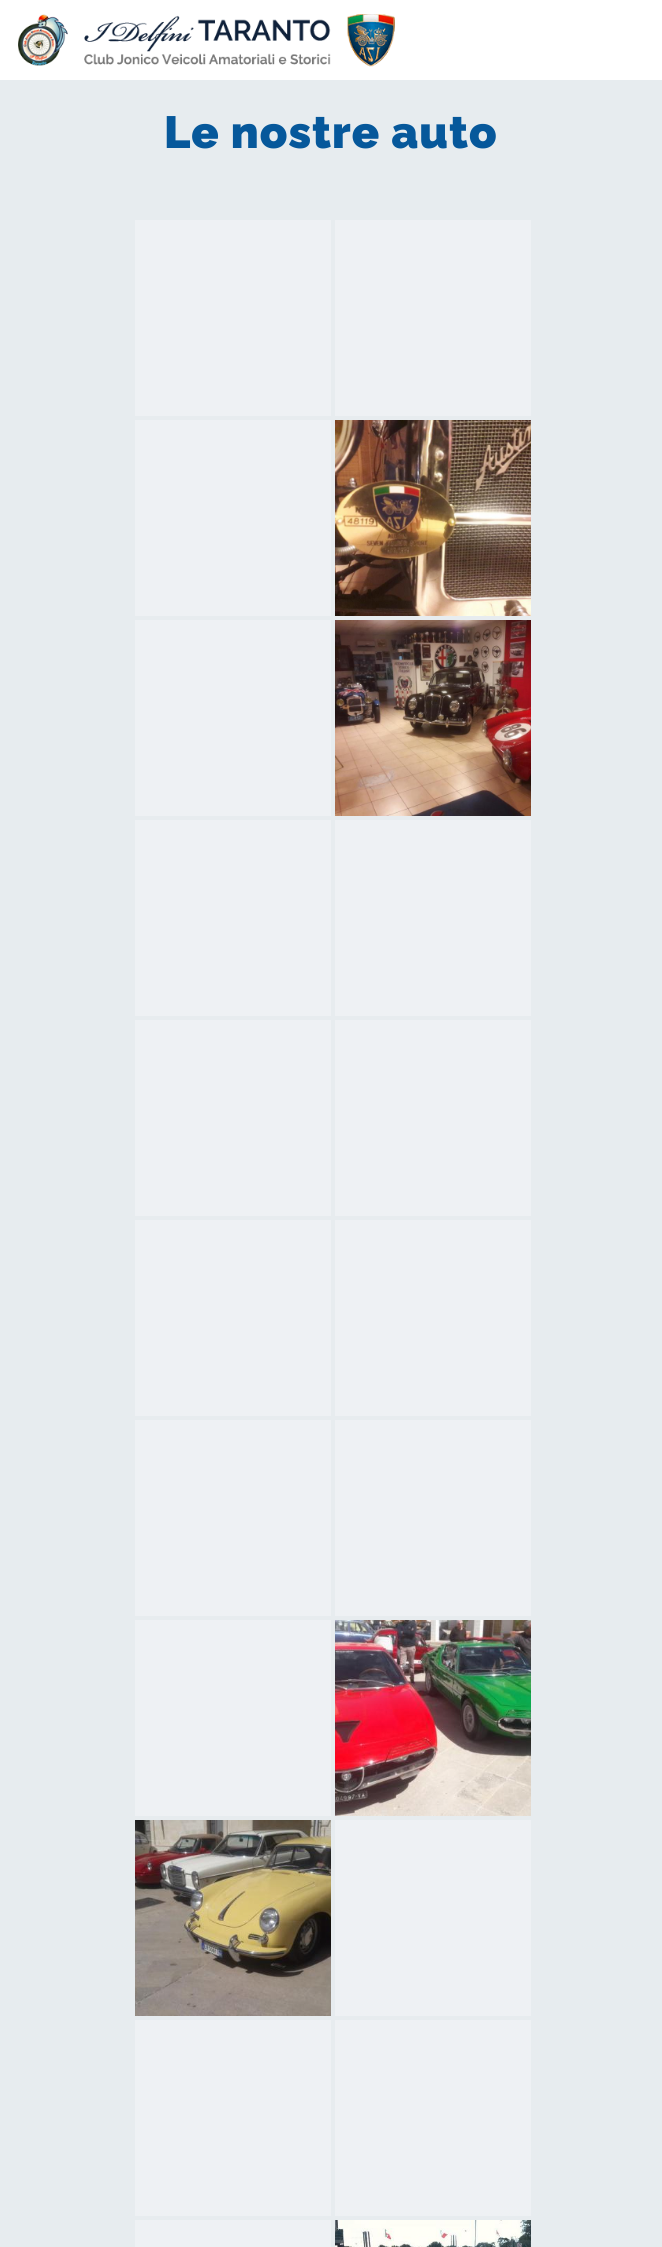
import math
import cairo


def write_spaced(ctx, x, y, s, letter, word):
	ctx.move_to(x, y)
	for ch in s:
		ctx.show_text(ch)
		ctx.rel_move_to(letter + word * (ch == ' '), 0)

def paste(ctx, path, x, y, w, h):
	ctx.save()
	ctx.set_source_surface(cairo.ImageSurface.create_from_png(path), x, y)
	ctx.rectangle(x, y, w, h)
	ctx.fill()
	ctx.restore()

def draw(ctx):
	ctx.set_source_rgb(0.906, 0.922, 0.937)
	ctx.paint()
	ctx.set_source_rgb(1, 1, 1)
	ctx.rectangle(0, 0, 662, 80)
	ctx.fill()
	paste(ctx, 'media/1.png', 18, 14, 377, 53)
	ctx.select_font_face('Raleway Black')
	ctx.set_font_size(45)
	ctx.set_source_rgb(0.027, 0.345, 0.608)
	write_spaced(ctx, 164, 148, 'Le nostre auto', 1, 0)
	ctx.set_source_rgb(0.933, 0.945, 0.957)
	ctx.rectangle(135, 220, 196, 196)
	ctx.rectangle(335, 220, 196, 196)
	ctx.rectangle(135, 420, 196, 196)
	ctx.fill()
	paste(ctx, 'media/2.png', 335, 420, 196, 196)
	ctx.rectangle(135, 620, 196, 196)
	ctx.fill()
	paste(ctx, 'media/3.png', 335, 620, 196, 196)
	ctx.rectangle(135, 820, 196, 196)
	ctx.rectangle(335, 820, 196, 196)
	ctx.rectangle(135, 1020, 196, 196)
	ctx.rectangle(335, 1020, 196, 196)
	ctx.rectangle(135, 1220, 196, 196)
	ctx.rectangle(335, 1220, 196, 196)
	ctx.rectangle(135, 1420, 196, 196)
	ctx.rectangle(335, 1420, 196, 196)
	ctx.rectangle(135, 1620, 196, 196)
	ctx.fill()
	paste(ctx, 'media/4.png', 335, 1620, 196, 196)
	paste(ctx, 'media/5.png', 135, 1820, 196, 196)
	ctx.rectangle(335, 1820, 196, 196)
	ctx.rectangle(135, 2020, 196, 196)
	ctx.rectangle(335, 2020, 196, 196)
	ctx.rectangle(135, 2220, 196, 27)
	ctx.fill()
	paste(ctx, 'media/6.png', 335, 2220, 196, 27)


surface = cairo.ImageSurface(cairo.FORMAT_RGB24, 662, 2247)
ctx = cairo.Context(surface)
options = cairo.FontOptions()
options.set_hint_metrics(cairo.HINT_METRICS_OFF)
options.set_hint_style(cairo.HINT_STYLE_NONE)
ctx.set_font_options(options)
ctx.set_miter_limit(4)
draw(ctx)
surface.write_to_png('image.png')
